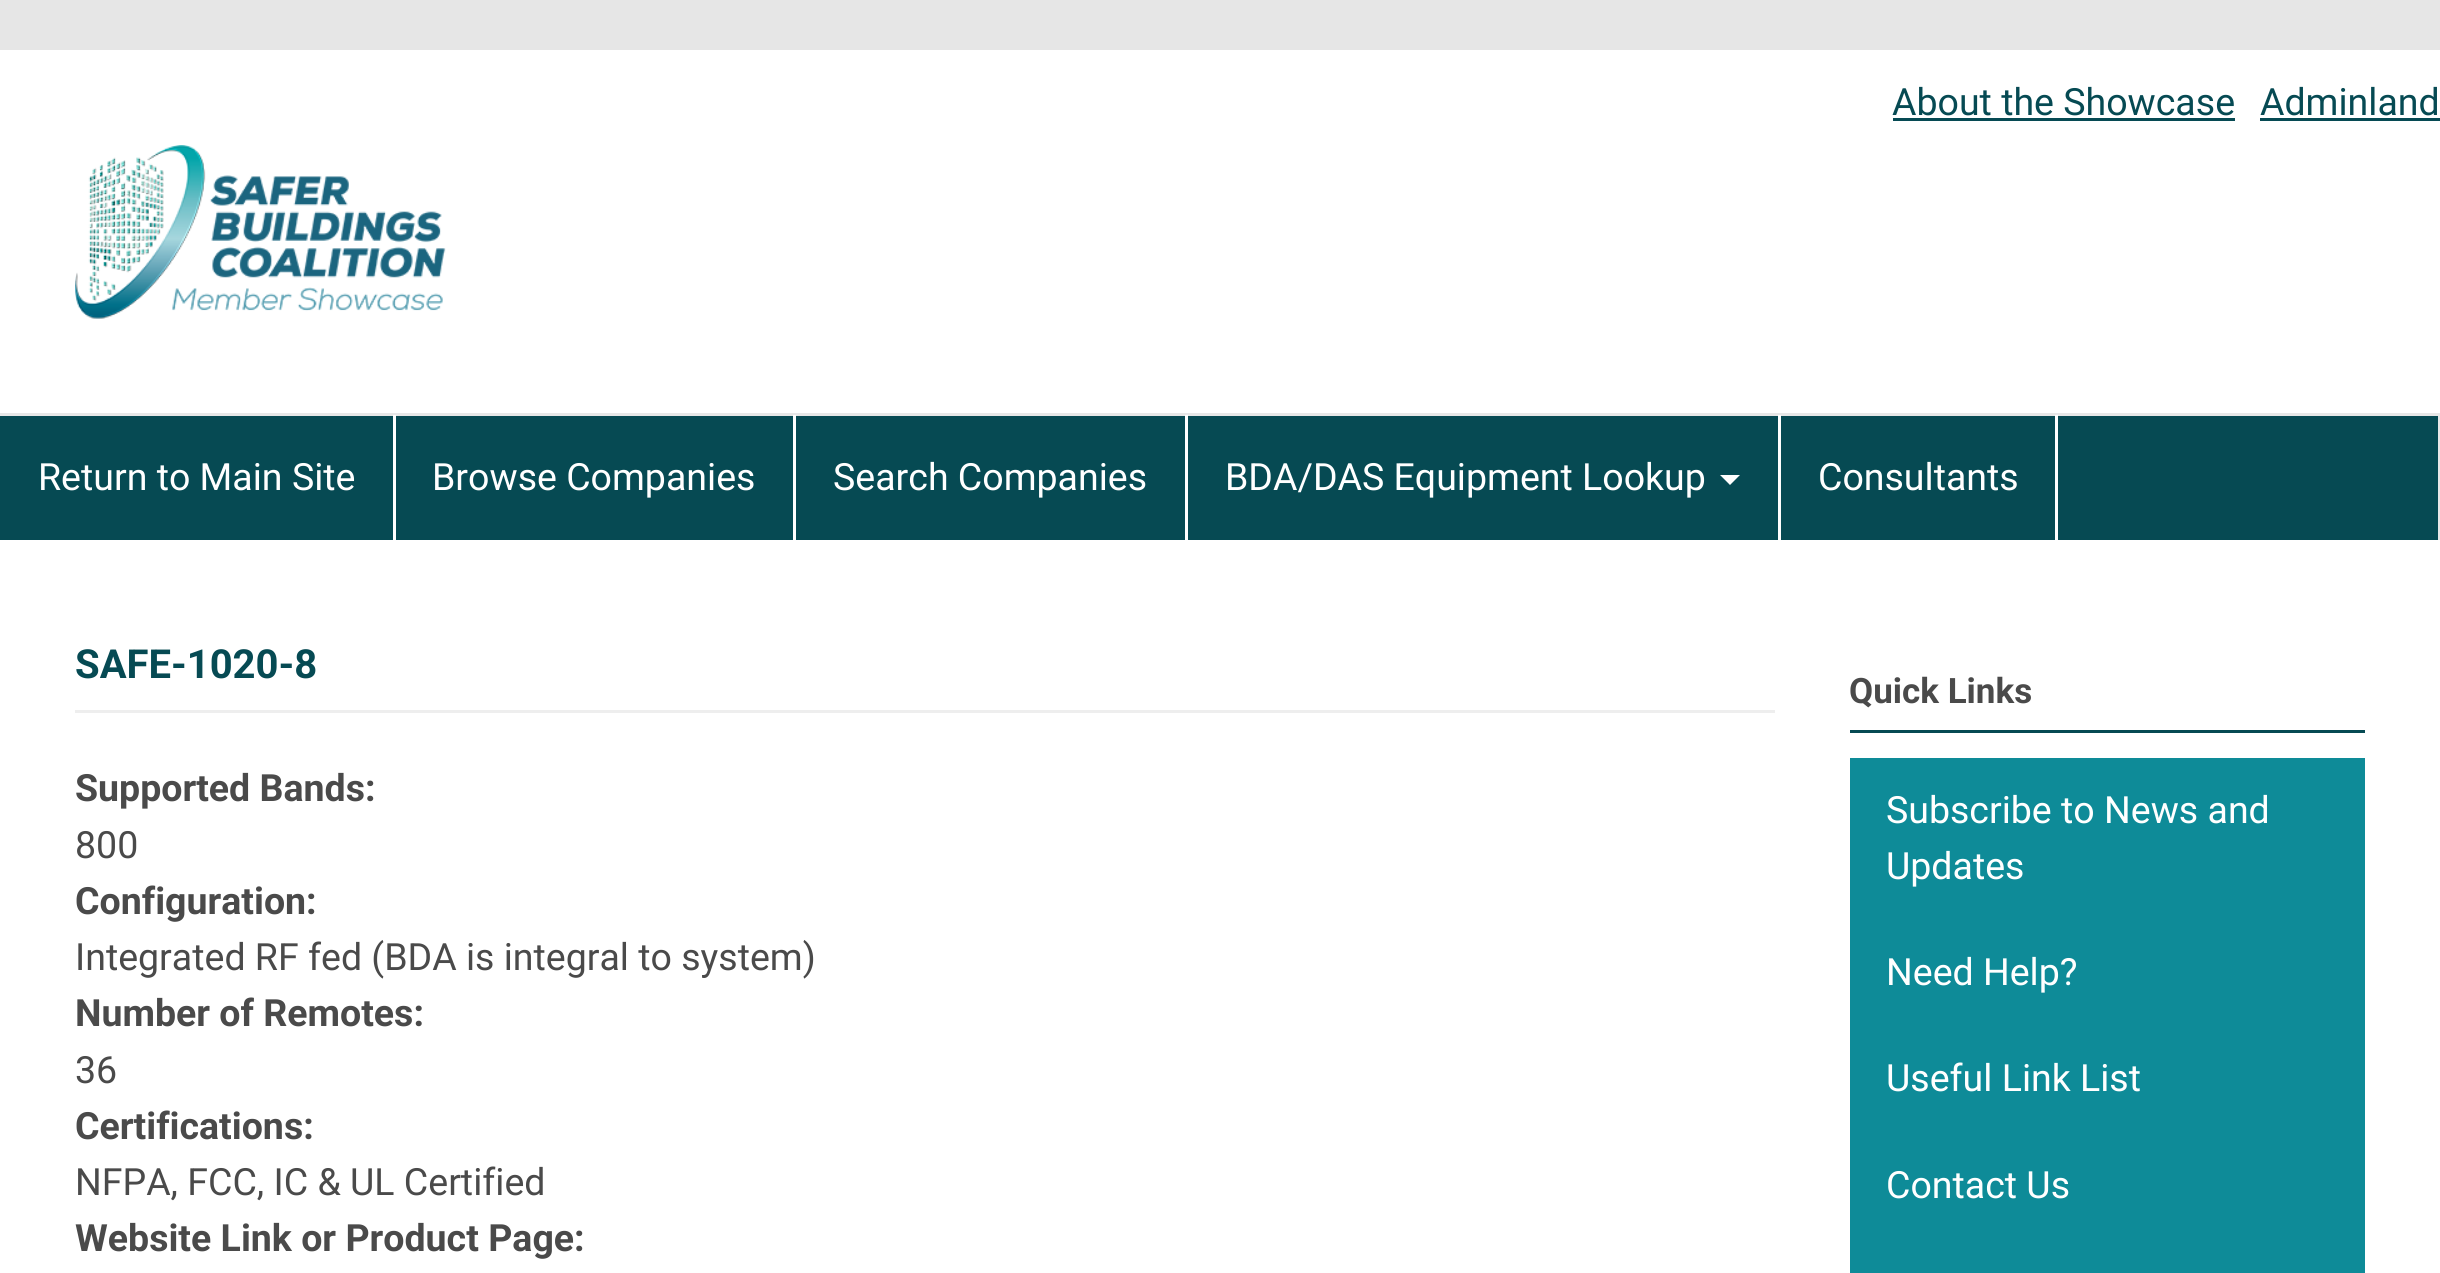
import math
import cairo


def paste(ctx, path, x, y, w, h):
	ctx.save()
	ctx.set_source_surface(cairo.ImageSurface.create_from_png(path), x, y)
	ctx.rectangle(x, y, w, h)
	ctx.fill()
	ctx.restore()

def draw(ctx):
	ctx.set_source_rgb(0.902, 0.902, 0.902)
	ctx.paint()
	ctx.set_source_rgb(1, 1, 1)
	ctx.rectangle(0, 50, 2440, 1223)
	ctx.fill()
	ctx.select_font_face('Roboto')
	ctx.set_font_size(37.5)
	ctx.set_source_rgb(0.027, 0.29, 0.325)
	ctx.move_to(1892, 115)
	ctx.show_text('About the Showcase')
	ctx.rectangle(1893, 118, 342, 3)
	ctx.fill()
	ctx.move_to(2260, 115)
	ctx.show_text('Adminland')
	ctx.rectangle(2260, 118, 180, 3)
	ctx.fill()
	paste(ctx, 'media/1.png', 75, 145, 371, 174)
	ctx.rectangle(0, 416, 2438, 124)
	ctx.fill()
	ctx.set_source_rgb(0.906, 0.906, 0.906)
	ctx.rectangle(0, 413, 2440, 3)
	ctx.rectangle(2438, 413, 2, 130)
	ctx.fill()
	ctx.set_source_rgb(1, 1, 1)
	ctx.rectangle(2438, 540, 2, 3)
	ctx.rectangle(393, 415, 3, 125)
	ctx.fill()
	ctx.move_to(38, 490)
	ctx.show_text('Return to Main Site')
	ctx.rectangle(793, 415, 3, 125)
	ctx.fill()
	ctx.move_to(432, 490)
	ctx.show_text('Browse Companies')
	ctx.rectangle(1185, 415, 3, 125)
	ctx.fill()
	ctx.move_to(833, 490)
	ctx.show_text('Search Companies')
	ctx.rectangle(1778, 415, 3, 125)
	ctx.fill()
	ctx.move_to(1225, 490)
	ctx.show_text('BDA/DAS Equipment Lookup')
	ctx.new_path()
	ctx.move_to(1720, 475)
	ctx.line_to(1740, 475)
	ctx.line_to(1730, 485)
	ctx.close_path()
	ctx.fill()
	ctx.rectangle(2055, 415, 3, 125)
	ctx.fill()
	ctx.move_to(1818, 490)
	ctx.show_text('Consultants')
	ctx.set_source_rgb(0.933, 0.933, 0.933)
	ctx.rectangle(75, 710, 1700, 3)
	ctx.fill()
	ctx.select_font_face('Roboto', cairo.FONT_SLANT_NORMAL, cairo.FONT_WEIGHT_BOLD)
	ctx.set_font_size(40)
	ctx.set_source_rgb(0.027, 0.29, 0.325)
	ctx.move_to(75, 678)
	ctx.show_text('SAFE-1020-8')
	ctx.set_font_size(37.5)
	ctx.set_source_rgb(0.29, 0.29, 0.29)
	ctx.move_to(75, 801)
	ctx.show_text('Supported Bands:')
	ctx.select_font_face('Roboto')
	ctx.move_to(75, 858)
	ctx.show_text('800')
	ctx.select_font_face('Roboto', cairo.FONT_SLANT_NORMAL, cairo.FONT_WEIGHT_BOLD)
	ctx.move_to(75, 914)
	ctx.show_text('Configuration:')
	ctx.select_font_face('Roboto')
	ctx.move_to(75, 970)
	ctx.show_text('Integrated RF fed (BDA is integral to system)')
	ctx.select_font_face('Roboto', cairo.FONT_SLANT_NORMAL, cairo.FONT_WEIGHT_BOLD)
	ctx.move_to(75, 1026)
	ctx.show_text('Number of Remotes:')
	ctx.select_font_face('Roboto')
	ctx.move_to(75, 1083)
	ctx.show_text('36')
	ctx.select_font_face('Roboto', cairo.FONT_SLANT_NORMAL, cairo.FONT_WEIGHT_BOLD)
	ctx.move_to(75, 1139)
	ctx.show_text('Certifications:')
	ctx.select_font_face('Roboto')
	ctx.move_to(75, 1195)
	ctx.show_text('NFPA, FCC, IC & UL Certified')
	ctx.select_font_face('Roboto', cairo.FONT_SLANT_NORMAL, cairo.FONT_WEIGHT_BOLD)
	ctx.move_to(75, 1251)
	ctx.show_text('Website Link or Product Page:')
	ctx.set_source_rgb(0.027, 0.29, 0.325)
	ctx.rectangle(1850, 730, 515, 3)
	ctx.fill()
	ctx.set_font_size(35)
	ctx.set_source_rgb(0.29, 0.29, 0.29)
	ctx.move_to(1849, 703)
	ctx.show_text('Quick Links')
	ctx.set_source_rgb(0.055, 0.545, 0.596)
	ctx.rectangle(1850, 758, 515, 515)
	ctx.fill()
	ctx.select_font_face('Roboto')
	ctx.set_font_size(37.5)
	ctx.set_source_rgb(1, 1, 1)
	for x, y, s in [
		(1886, 823, 'Subscribe to News and'),
		(1886, 879, 'Updates'),
		(1886, 985, 'Need Help?'),
		(1886, 1091, 'Useful Link List'),
		(1886, 1198, 'Contact Us'),
	]:
		ctx.move_to(x, y)
		ctx.show_text(s)


surface = cairo.ImageSurface(cairo.FORMAT_RGB24, 2440, 1273)
ctx = cairo.Context(surface)
options = cairo.FontOptions()
options.set_hint_metrics(cairo.HINT_METRICS_OFF)
options.set_hint_style(cairo.HINT_STYLE_NONE)
ctx.set_font_options(options)
ctx.set_miter_limit(4)
draw(ctx)
surface.write_to_png('image.png')
